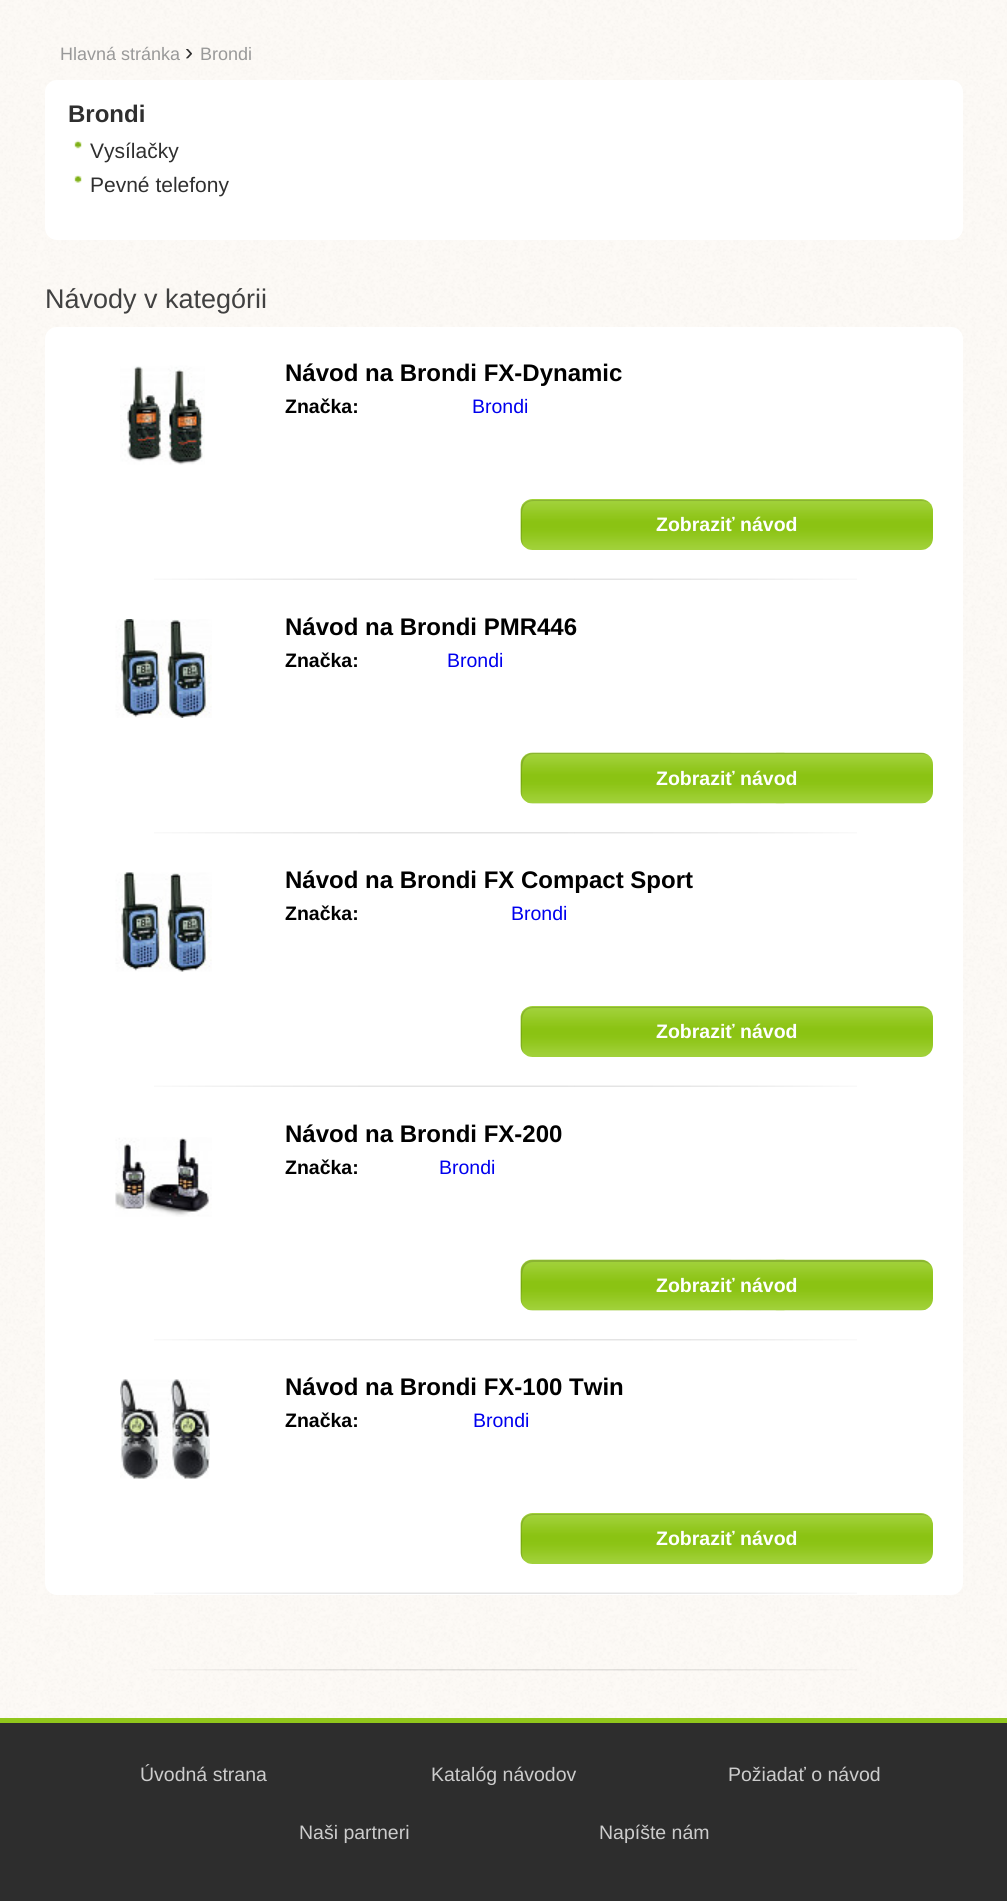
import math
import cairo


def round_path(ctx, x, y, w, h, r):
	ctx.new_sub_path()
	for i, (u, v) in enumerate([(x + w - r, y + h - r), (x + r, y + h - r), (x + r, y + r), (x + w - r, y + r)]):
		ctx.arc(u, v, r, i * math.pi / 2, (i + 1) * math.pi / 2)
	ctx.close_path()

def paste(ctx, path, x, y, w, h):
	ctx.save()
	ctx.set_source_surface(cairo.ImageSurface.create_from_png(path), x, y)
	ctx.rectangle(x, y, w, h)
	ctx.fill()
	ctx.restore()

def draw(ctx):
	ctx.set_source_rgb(1, 1, 1)
	ctx.paint()
	paste(ctx, 'media/1.png', 0, 0, 1007, 1718)
	ctx.select_font_face('Liberation Sans')
	ctx.set_font_size(18)
	ctx.set_source_rgb(0.6, 0.6, 0.6)
	ctx.move_to(60, 60)
	ctx.show_text('Hlavná stránka')
	ctx.set_font_size(24)
	ctx.set_source_rgb(0.184, 0.184, 0.184)
	ctx.move_to(185, 60)
	ctx.show_text('›')
	ctx.set_font_size(18)
	ctx.set_source_rgb(0.6, 0.6, 0.6)
	ctx.move_to(200, 60)
	ctx.show_text('Brondi')
	ctx.set_source_rgb(1, 1, 1)
	round_path(ctx, 45, 80, 918, 160, 12)
	ctx.fill()
	ctx.select_font_face('Liberation Sans', cairo.FONT_SLANT_NORMAL, cairo.FONT_WEIGHT_BOLD)
	ctx.set_font_size(24)
	ctx.set_source_rgb(0.184, 0.184, 0.184)
	ctx.move_to(68, 122)
	ctx.show_text('Brondi')
	paste(ctx, 'media/2.png', 74, 140, 8, 9)
	ctx.select_font_face('Liberation Sans')
	ctx.set_font_size(21)
	ctx.move_to(90, 158)
	ctx.show_text('Vysílačky')
	paste(ctx, 'media/3.png', 74, 175, 8, 8)
	ctx.move_to(90, 192)
	ctx.show_text('Pevné telefony')
	ctx.set_font_size(27)
	ctx.set_source_rgb(0.255, 0.255, 0.255)
	ctx.move_to(45, 308)
	ctx.show_text('Návody v kategórii')
	ctx.set_source_rgb(1, 1, 1)
	round_path(ctx, 45, 327, 918, 1268, 12)
	ctx.fill()
	paste(ctx, 'media/4.png', 154, 578, 703, 2)
	paste(ctx, 'media/5.png', 120, 365, 85, 100)
	ctx.select_font_face('Liberation Sans', cairo.FONT_SLANT_NORMAL, cairo.FONT_WEIGHT_BOLD)
	ctx.set_font_size(24)
	ctx.set_source_rgb(0, 0, 0)
	ctx.move_to(285, 381)
	ctx.show_text('Návod na Brondi FX-Dynamic')
	ctx.set_font_size(19.5)
	ctx.move_to(285, 413)
	ctx.show_text('Značka:')
	ctx.select_font_face('Liberation Sans')
	ctx.set_source_rgb(0, 0, 0.933)
	ctx.move_to(472, 413)
	ctx.show_text('Brondi')
	paste(ctx, 'media/6.png', 520, 499, 413, 51)
	ctx.set_source_rgba(0, 0, 0, 0.14)
	ctx.new_path()
	ctx.move_to(534, 501)
	ctx.line_to(922, 501)
	ctx.curve_to(925, 501, 927, 502, 929, 503)
	ctx.curve_to(927, 501, 924, 500, 921, 500)
	ctx.line_to(533, 500)
	ctx.curve_to(526, 500, 521, 505, 521, 512)
	ctx.line_to(521, 539)
	ctx.curve_to(521, 542, 522, 545, 524, 547)
	ctx.curve_to(521, 542, 522, 532, 522, 526)
	ctx.curve_to(522, 517, 519, 501, 534, 501)
	ctx.close_path()
	ctx.fill()
	ctx.select_font_face('Liberation Sans', cairo.FONT_SLANT_NORMAL, cairo.FONT_WEIGHT_BOLD)
	ctx.set_source_rgb(1, 1, 1)
	ctx.move_to(656, 531)
	ctx.show_text('Zobraziť návod')
	paste(ctx, 'media/7.png', 154, 832, 703, 2)
	paste(ctx, 'media/8.png', 115, 619, 97, 99)
	ctx.set_font_size(24)
	ctx.set_source_rgb(0, 0, 0)
	ctx.move_to(285, 635)
	ctx.show_text('Návod na Brondi PMR446')
	ctx.set_font_size(19.5)
	ctx.move_to(285, 667)
	ctx.show_text('Značka:')
	ctx.select_font_face('Liberation Sans')
	ctx.set_source_rgb(0, 0, 0.933)
	ctx.move_to(447, 667)
	ctx.show_text('Brondi')
	paste(ctx, 'media/9.png', 520, 752, 413, 52)
	ctx.set_source_rgba(0, 0, 0, 0.14)
	ctx.new_path()
	ctx.move_to(534, 754)
	ctx.line_to(922, 754)
	ctx.curve_to(925, 754, 928, 755, 930, 757)
	ctx.curve_to(928, 755, 925, 753, 921, 753)
	ctx.line_to(533, 753)
	ctx.curve_to(526, 753, 521, 758, 521, 765)
	ctx.line_to(521, 792)
	ctx.curve_to(521, 794, 522, 797, 523, 799)
	ctx.curve_to(521, 794, 522, 785, 522, 780)
	ctx.curve_to(522, 771, 520, 754, 534, 754)
	ctx.close_path()
	ctx.fill()
	ctx.select_font_face('Liberation Sans', cairo.FONT_SLANT_NORMAL, cairo.FONT_WEIGHT_BOLD)
	ctx.set_source_rgb(1, 1, 1)
	ctx.move_to(656, 785)
	ctx.show_text('Zobraziť návod')
	paste(ctx, 'media/4.png', 154, 1085, 703, 2)
	paste(ctx, 'media/10.png', 115, 872, 97, 100)
	ctx.set_font_size(24)
	ctx.set_source_rgb(0, 0, 0)
	ctx.move_to(285, 888)
	ctx.show_text('Návod na Brondi FX Compact Sport')
	ctx.set_font_size(19.5)
	ctx.move_to(285, 920)
	ctx.show_text('Značka:')
	ctx.select_font_face('Liberation Sans')
	ctx.set_source_rgb(0, 0, 0.933)
	ctx.move_to(511, 920)
	ctx.show_text('Brondi')
	paste(ctx, 'media/6.png', 520, 1006, 413, 51)
	ctx.set_source_rgba(0, 0, 0, 0.14)
	ctx.new_path()
	ctx.move_to(534, 1008)
	ctx.line_to(922, 1008)
	ctx.curve_to(925, 1008, 927, 1009, 929, 1010)
	ctx.curve_to(927, 1008, 924, 1007, 921, 1007)
	ctx.line_to(533, 1007)
	ctx.curve_to(526, 1007, 521, 1012, 521, 1019)
	ctx.line_to(521, 1046)
	ctx.curve_to(521, 1049, 522, 1052, 524, 1054)
	ctx.curve_to(521, 1049, 522, 1039, 522, 1034)
	ctx.curve_to(522, 1024, 519, 1008, 534, 1008)
	ctx.close_path()
	ctx.fill()
	ctx.select_font_face('Liberation Sans', cairo.FONT_SLANT_NORMAL, cairo.FONT_WEIGHT_BOLD)
	ctx.set_source_rgb(1, 1, 1)
	ctx.move_to(656, 1038)
	ctx.show_text('Zobraziť návod')
	paste(ctx, 'media/7.png', 154, 1339, 703, 2)
	paste(ctx, 'media/11.png', 115, 1137, 97, 80)
	ctx.set_font_size(24)
	ctx.set_source_rgb(0, 0, 0)
	ctx.move_to(285, 1142)
	ctx.show_text('Návod na Brondi FX-200')
	ctx.set_font_size(19.5)
	ctx.move_to(285, 1174)
	ctx.show_text('Značka:')
	ctx.select_font_face('Liberation Sans')
	ctx.set_source_rgb(0, 0, 0.933)
	ctx.move_to(439, 1174)
	ctx.show_text('Brondi')
	paste(ctx, 'media/9.png', 520, 1259, 413, 52)
	ctx.set_source_rgba(0, 0, 0, 0.14)
	ctx.new_path()
	ctx.move_to(534, 1262)
	ctx.line_to(922, 1262)
	ctx.curve_to(926, 1262, 930, 1264, 932, 1267)
	ctx.curve_to(930, 1263, 926, 1260, 921, 1260)
	ctx.line_to(533, 1260)
	ctx.curve_to(526, 1260, 521, 1265, 521, 1272)
	ctx.line_to(521, 1299)
	ctx.curve_to(521, 1302, 522, 1305, 524, 1307)
	ctx.curve_to(520, 1302, 522, 1293, 522, 1287)
	ctx.curve_to(522, 1277, 520, 1262, 534, 1262)
	ctx.close_path()
	ctx.fill()
	ctx.select_font_face('Liberation Sans', cairo.FONT_SLANT_NORMAL, cairo.FONT_WEIGHT_BOLD)
	ctx.set_source_rgb(1, 1, 1)
	ctx.move_to(656, 1292)
	ctx.show_text('Zobraziť návod')
	paste(ctx, 'media/4.png', 154, 1592, 703, 2)
	paste(ctx, 'media/12.png', 120, 1379, 90, 100)
	ctx.set_font_size(24)
	ctx.set_source_rgb(0, 0, 0)
	ctx.move_to(285, 1395)
	ctx.show_text('Návod na Brondi FX-100 Twin')
	ctx.set_font_size(19.5)
	ctx.move_to(285, 1427)
	ctx.show_text('Značka:')
	ctx.select_font_face('Liberation Sans')
	ctx.set_source_rgb(0, 0, 0.933)
	ctx.move_to(473, 1427)
	ctx.show_text('Brondi')
	paste(ctx, 'media/6.png', 520, 1513, 413, 51)
	ctx.set_source_rgba(0, 0, 0, 0.14)
	ctx.new_path()
	ctx.move_to(534, 1515)
	ctx.line_to(922, 1515)
	ctx.curve_to(925, 1515, 927, 1516, 929, 1517)
	ctx.curve_to(927, 1515, 924, 1514, 921, 1514)
	ctx.line_to(533, 1514)
	ctx.curve_to(526, 1514, 521, 1519, 521, 1526)
	ctx.line_to(521, 1553)
	ctx.curve_to(521, 1556, 522, 1559, 524, 1561)
	ctx.curve_to(521, 1556, 522, 1546, 522, 1540)
	ctx.curve_to(522, 1531, 519, 1515, 534, 1515)
	ctx.close_path()
	ctx.fill()
	ctx.select_font_face('Liberation Sans', cairo.FONT_SLANT_NORMAL, cairo.FONT_WEIGHT_BOLD)
	ctx.set_source_rgb(1, 1, 1)
	ctx.move_to(656, 1545)
	ctx.show_text('Zobraziť návod')
	paste(ctx, 'media/13.png', 154, 1669, 703, 2)
	ctx.set_source_rgb(0.176, 0.176, 0.176)
	ctx.rectangle(0, 1723, 1007, 178)
	ctx.fill()
	ctx.set_source_rgb(0.565, 0.776, 0.106)
	ctx.rectangle(0, 1718, 1007, 5)
	ctx.fill()
	ctx.select_font_face('Liberation Sans')
	ctx.set_source_rgb(0.8, 0.8, 0.8)
	for x, y, s in [
		(140, 1781, 'Úvodná strana'),
		(431, 1781, 'Katalóg návodov'),
		(728, 1781, 'Požiadať o návod'),
		(299, 1839, 'Naši partneri'),
		(599, 1839, 'Napíšte nám'),
	]:
		ctx.move_to(x, y)
		ctx.show_text(s)


surface = cairo.ImageSurface(cairo.FORMAT_RGB24, 1007, 1901)
ctx = cairo.Context(surface)
options = cairo.FontOptions()
options.set_hint_metrics(cairo.HINT_METRICS_OFF)
options.set_hint_style(cairo.HINT_STYLE_NONE)
ctx.set_font_options(options)
ctx.set_miter_limit(4)
draw(ctx)
surface.write_to_png('image.png')
